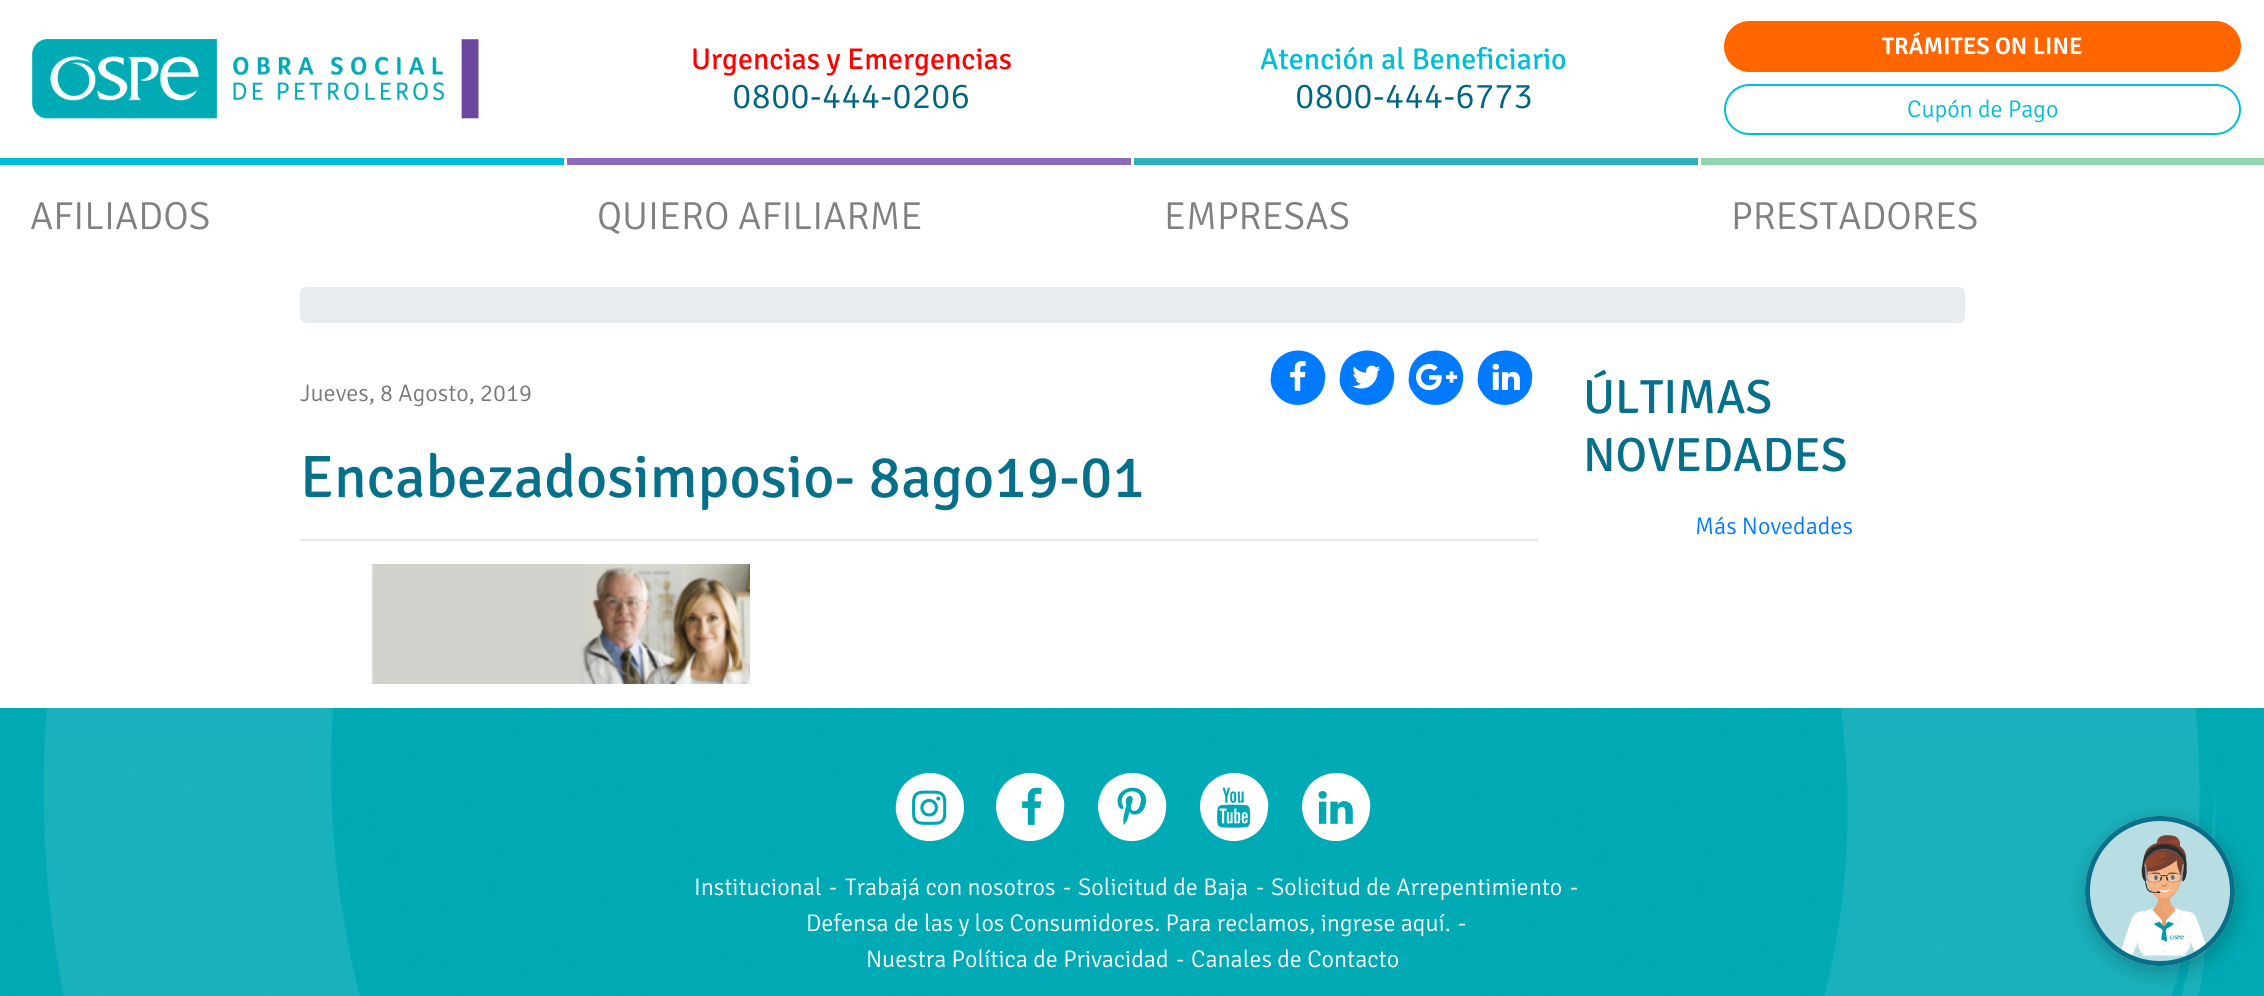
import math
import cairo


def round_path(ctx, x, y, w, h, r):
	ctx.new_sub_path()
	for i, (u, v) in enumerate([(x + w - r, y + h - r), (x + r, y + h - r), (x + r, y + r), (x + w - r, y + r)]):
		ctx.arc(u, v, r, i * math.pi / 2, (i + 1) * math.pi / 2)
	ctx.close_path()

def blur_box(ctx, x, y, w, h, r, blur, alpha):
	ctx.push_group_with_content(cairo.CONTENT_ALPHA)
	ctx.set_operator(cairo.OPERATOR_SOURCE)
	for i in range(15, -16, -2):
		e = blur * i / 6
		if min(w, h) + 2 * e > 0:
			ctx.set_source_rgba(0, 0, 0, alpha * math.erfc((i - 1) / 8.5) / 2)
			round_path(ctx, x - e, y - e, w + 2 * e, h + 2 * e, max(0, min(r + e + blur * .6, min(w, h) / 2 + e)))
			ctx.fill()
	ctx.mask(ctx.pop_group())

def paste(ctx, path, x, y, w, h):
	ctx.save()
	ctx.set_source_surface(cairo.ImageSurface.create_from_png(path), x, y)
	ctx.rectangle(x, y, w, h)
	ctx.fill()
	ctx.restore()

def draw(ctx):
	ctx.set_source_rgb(1, 1, 1)
	ctx.paint()
	paste(ctx, 'media/1.png', 32, 39, 447, 80)
	ctx.select_font_face('Signika')
	ctx.set_font_size(30)
	ctx.set_source_rgb(1, 0, 0)
	ctx.move_to(691, 69)
	ctx.show_text('Urgencias y Emergencias')
	ctx.select_font_face('Signika Light')
	ctx.set_font_size(36)
	ctx.set_source_rgb(0, 0.396, 0.502)
	ctx.move_to(732, 108)
	ctx.show_text('0800-444-0206')
	ctx.select_font_face('Signika')
	ctx.set_font_size(30)
	ctx.set_source_rgb(0, 0.745, 0.839)
	ctx.move_to(1260, 69)
	ctx.show_text('Atención al Beneficiario')
	ctx.select_font_face('Signika Light')
	ctx.set_font_size(36)
	ctx.set_source_rgb(0, 0.396, 0.502)
	ctx.move_to(1295, 108)
	ctx.show_text('0800-444-6773')
	ctx.set_source_rgb(1, 0.4, 0)
	round_path(ctx, 1724, 21, 517, 51, 25.5)
	ctx.fill()
	ctx.select_font_face('Signika SemiBold')
	ctx.set_font_size(24)
	ctx.set_source_rgb(1, 1, 1)
	ctx.move_to(1882, 54)
	ctx.show_text('TRÁMITES ON LINE')
	round_path(ctx, 1725, 85, 515, 49, 24.5)
	ctx.set_source_rgb(0, 0.745, 0.839)
	ctx.stroke()
	ctx.select_font_face('Signika Light')
	ctx.move_to(1907, 117)
	ctx.show_text('Cupón de Pago')
	ctx.rectangle(0, 158, 564, 7)
	ctx.fill()
	ctx.set_font_size(39)
	ctx.set_source_rgb(0.502, 0.502, 0.502)
	ctx.move_to(30, 229)
	ctx.show_text('AFILIADOS')
	ctx.set_source_rgb(0.545, 0.42, 0.733)
	ctx.rectangle(567, 158, 564, 7)
	ctx.fill()
	ctx.set_source_rgb(0.502, 0.502, 0.502)
	ctx.move_to(597, 229)
	ctx.show_text('QUIERO AFILIARME')
	ctx.set_source_rgb(0.188, 0.694, 0.729)
	ctx.rectangle(1134, 158, 564, 7)
	ctx.fill()
	ctx.set_source_rgb(0.502, 0.502, 0.502)
	ctx.move_to(1164, 229)
	ctx.show_text('EMPRESAS')
	ctx.set_source_rgb(0.565, 0.835, 0.675)
	ctx.rectangle(1701, 158, 563, 7)
	ctx.fill()
	ctx.set_source_rgb(0.502, 0.502, 0.502)
	ctx.move_to(1731, 229)
	ctx.show_text('PRESTADORES')
	ctx.set_source_rgb(0.914, 0.925, 0.937)
	round_path(ctx, 300, 287, 1665, 36, 6)
	ctx.fill()
	ctx.set_font_size(24)
	ctx.set_source_rgb(0.471, 0.471, 0.471)
	ctx.move_to(300, 401)
	ctx.show_text('Jueves, 8 Agosto, 2019')
	ctx.set_source_rgb(0, 0.482, 1)
	ctx.new_path()
	ctx.move_to(1322, 364)
	ctx.curve_to(1324, 369, 1326, 374, 1325, 379)
	ctx.curve_to(1324, 406, 1288, 415, 1274, 391)
	ctx.curve_to(1271, 387, 1270, 381, 1271, 376)
	ctx.curve_to(1272, 349, 1308, 341, 1322, 364)
	ctx.close_path()
	ctx.fill()
	paste(ctx, 'media/2.png', 1290, 361, 16, 30)
	ctx.new_path()
	ctx.move_to(1391, 364)
	ctx.curve_to(1393, 369, 1395, 374, 1394, 379)
	ctx.curve_to(1393, 406, 1357, 415, 1343, 391)
	ctx.curve_to(1340, 387, 1339, 381, 1340, 376)
	ctx.curve_to(1341, 349, 1377, 341, 1391, 364)
	ctx.close_path()
	ctx.fill()
	paste(ctx, 'media/3.png', 1352, 365, 29, 24)
	ctx.new_path()
	ctx.move_to(1460, 364)
	ctx.curve_to(1462, 369, 1464, 374, 1463, 379)
	ctx.curve_to(1462, 406, 1426, 415, 1412, 391)
	ctx.curve_to(1409, 387, 1408, 381, 1409, 376)
	ctx.curve_to(1410, 349, 1446, 341, 1460, 364)
	ctx.close_path()
	ctx.fill()
	paste(ctx, 'media/4.png', 1416, 364, 42, 27)
	ctx.new_path()
	ctx.move_to(1529, 364)
	ctx.curve_to(1531, 369, 1533, 374, 1532, 379)
	ctx.curve_to(1531, 406, 1495, 415, 1481, 391)
	ctx.curve_to(1478, 387, 1477, 381, 1478, 376)
	ctx.curve_to(1479, 349, 1515, 341, 1529, 364)
	ctx.close_path()
	ctx.fill()
	paste(ctx, 'media/5.png', 1492, 363, 28, 27)
	ctx.select_font_face('Signika')
	ctx.set_font_size(60)
	ctx.set_source_rgb(0.024, 0.439, 0.545)
	ctx.move_to(300, 497)
	ctx.show_text('Encabezadosimposio- 8ago19-01')
	ctx.set_source_rgb(0.902, 0.902, 0.902)
	ctx.rectangle(300, 539, 1238, 2)
	ctx.fill()
	paste(ctx, 'media/6.png', 371, 564, 379, 120)
	ctx.set_font_size(48)
	ctx.set_source_rgb(0.024, 0.439, 0.545)
	ctx.move_to(1583, 413)
	ctx.show_text('ÚLTIMAS')
	ctx.move_to(1583, 471)
	ctx.show_text('NOVEDADES')
	ctx.select_font_face('Signika Light')
	ctx.set_font_size(24)
	ctx.set_source_rgb(0, 0.482, 1)
	ctx.move_to(1695, 534)
	ctx.show_text('Más Novedades')
	paste(ctx, 'media/7.png', 0, 708, 2264, 288)
	ctx.set_source_rgb(1, 1, 1)
	ctx.new_path()
	ctx.move_to(959, 790)
	ctx.curve_to(963, 796, 964, 802, 964, 809)
	ctx.curve_to(962, 843, 917, 853, 900, 824)
	ctx.curve_to(897, 818, 895, 811, 896, 805)
	ctx.curve_to(898, 771, 943, 761, 959, 790)
	ctx.close_path()
	ctx.fill()
	paste(ctx, 'media/8.png', 912, 790, 35, 35)
	ctx.new_path()
	ctx.move_to(1060, 790)
	ctx.curve_to(1063, 796, 1065, 802, 1064, 809)
	ctx.curve_to(1062, 843, 1017, 853, 1001, 824)
	ctx.curve_to(997, 818, 996, 811, 996, 805)
	ctx.curve_to(998, 771, 1043, 761, 1060, 790)
	ctx.close_path()
	ctx.fill()
	paste(ctx, 'media/9.png', 1022, 787, 20, 38)
	ctx.new_path()
	ctx.move_to(1162, 790)
	ctx.curve_to(1165, 796, 1167, 802, 1166, 809)
	ctx.curve_to(1164, 843, 1119, 853, 1103, 824)
	ctx.curve_to(1099, 818, 1098, 811, 1098, 805)
	ctx.curve_to(1100, 771, 1145, 761, 1162, 790)
	ctx.close_path()
	ctx.fill()
	paste(ctx, 'media/10.png', 1117, 787, 30, 38)
	ctx.new_path()
	ctx.move_to(1264, 790)
	ctx.curve_to(1267, 796, 1269, 802, 1268, 809)
	ctx.curve_to(1266, 843, 1221, 853, 1205, 824)
	ctx.curve_to(1201, 818, 1200, 811, 1200, 805)
	ctx.curve_to(1202, 771, 1247, 761, 1264, 790)
	ctx.close_path()
	ctx.fill()
	paste(ctx, 'media/11.png', 1217, 787, 34, 41)
	ctx.new_path()
	ctx.move_to(1366, 790)
	ctx.curve_to(1369, 796, 1371, 802, 1370, 809)
	ctx.curve_to(1368, 843, 1323, 853, 1307, 824)
	ctx.curve_to(1303, 818, 1302, 811, 1302, 805)
	ctx.curve_to(1304, 771, 1349, 761, 1366, 790)
	ctx.close_path()
	ctx.fill()
	paste(ctx, 'media/12.png', 1318, 791, 35, 33)
	for x, y, s in [
		(694, 895, 'Institucional'),
		(829, 895, '-'),
		(845, 895, 'Trabajá con nosotros'),
		(1063, 895, '-'),
		(1078, 895, 'Solicitud de Baja'),
		(1256, 895, '-'),
		(1271, 895, 'Solicitud de Arrepentimiento'),
		(1570, 895, '-'),
		(806, 931, 'Defensa de las y los Consumidores. Para reclamos, ingrese aquí.'),
		(1458, 931, '-'),
		(866, 967, 'Nuestra Política de Privacidad'),
		(1176, 967, '-'),
		(1191, 967, 'Canales de Contacto'),
	]:
		ctx.move_to(x, y)
		ctx.show_text(s)
	ctx.set_source_rgb(0, 0, 0)
	blur_box(ctx, 2087, 822, 150, 150, 75, 11, 0.24)
	ctx.set_source_rgb(0.722, 0.867, 0.89)
	ctx.arc(2160, 891, 75, 0, 2 * math.pi)
	ctx.fill()
	paste(ctx, 'media/13.png', 2120, 835, 87, 121)
	ctx.arc(2160, 891, 72.5, 0, 2 * math.pi)
	ctx.set_source_rgb(0.024, 0.439, 0.541)
	ctx.set_line_width(5)
	ctx.stroke()


surface = cairo.ImageSurface(cairo.FORMAT_RGB24, 2264, 996)
ctx = cairo.Context(surface)
options = cairo.FontOptions()
options.set_hint_metrics(cairo.HINT_METRICS_OFF)
options.set_hint_style(cairo.HINT_STYLE_NONE)
ctx.set_font_options(options)
ctx.set_miter_limit(4)
draw(ctx)
surface.write_to_png('image.png')
